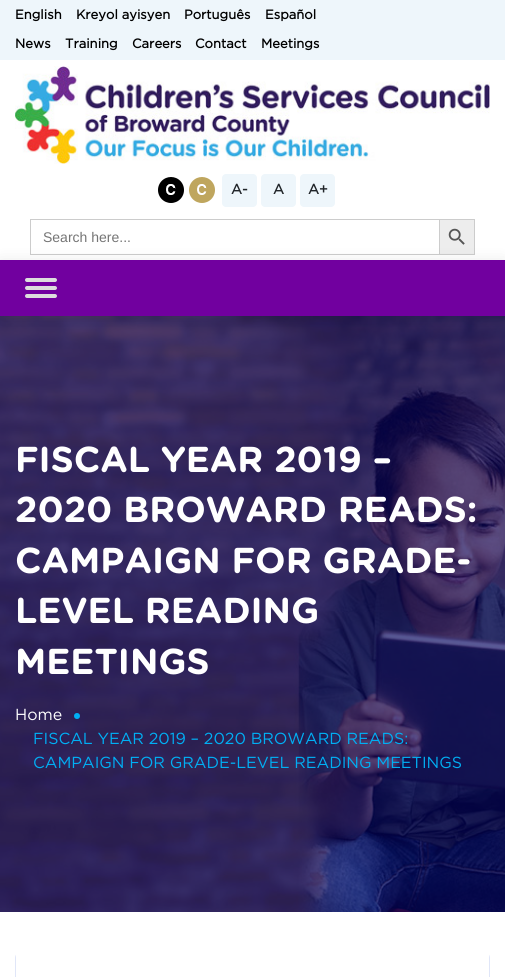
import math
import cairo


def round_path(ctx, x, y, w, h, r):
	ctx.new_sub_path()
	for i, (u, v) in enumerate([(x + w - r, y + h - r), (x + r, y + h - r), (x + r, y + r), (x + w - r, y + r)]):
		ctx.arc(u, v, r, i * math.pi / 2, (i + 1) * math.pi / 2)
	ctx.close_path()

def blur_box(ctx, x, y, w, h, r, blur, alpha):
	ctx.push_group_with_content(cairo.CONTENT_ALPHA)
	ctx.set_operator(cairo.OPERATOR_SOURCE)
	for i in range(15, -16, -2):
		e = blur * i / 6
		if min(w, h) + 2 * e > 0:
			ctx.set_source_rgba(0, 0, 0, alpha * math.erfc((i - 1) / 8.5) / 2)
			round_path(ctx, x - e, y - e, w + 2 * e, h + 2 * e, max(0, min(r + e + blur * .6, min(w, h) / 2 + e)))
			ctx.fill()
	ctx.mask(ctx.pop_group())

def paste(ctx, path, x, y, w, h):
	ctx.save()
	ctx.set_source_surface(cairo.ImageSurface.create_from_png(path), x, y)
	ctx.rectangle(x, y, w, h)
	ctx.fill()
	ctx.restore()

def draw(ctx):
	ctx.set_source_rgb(1, 1, 1)
	ctx.paint()
	ctx.set_source_rgb(0.933, 0.961, 0.984)
	ctx.rectangle(0, 0, 505, 60)
	ctx.fill()
	ctx.select_font_face('Gotham', cairo.FONT_SLANT_NORMAL, cairo.FONT_WEIGHT_BOLD)
	ctx.set_font_size(13)
	ctx.set_source_rgb(0, 0, 0)
	for x, y, s in [
		(15, 19, 'English'),
		(76, 19, 'Kreyol ayisyen'),
		(184, 19, 'Português'),
		(265, 19, 'Español'),
		(15, 48, 'News'),
		(65, 48, 'Training'),
		(132, 48, 'Careers'),
		(195, 48, 'Contact'),
		(261, 48, 'Meetings'),
	]:
		ctx.move_to(x, y)
		ctx.show_text(s)
	paste(ctx, 'media/1.png', 15, 66, 475, 98)
	paste(ctx, 'media/2.png', 158, 177, 26, 26)
	paste(ctx, 'media/3.png', 189, 177, 26, 26)
	ctx.set_source_rgb(0.933, 0.961, 0.984)
	round_path(ctx, 222, 174, 35, 33, 4)
	ctx.fill()
	ctx.set_font_size(14)
	ctx.set_source_rgb(0.129, 0.145, 0.161)
	ctx.move_to(231, 194)
	ctx.show_text('A-')
	ctx.set_source_rgb(0.933, 0.961, 0.984)
	round_path(ctx, 261, 174, 35, 33, 4)
	ctx.fill()
	ctx.set_source_rgb(0.129, 0.145, 0.161)
	ctx.move_to(273, 194)
	ctx.show_text('A')
	ctx.set_source_rgb(0.933, 0.961, 0.984)
	round_path(ctx, 300, 174, 35, 33, 4)
	ctx.fill()
	ctx.set_source_rgb(0.129, 0.145, 0.161)
	ctx.move_to(308, 194)
	ctx.show_text('A+')
	ctx.set_source_rgb(0.8, 0.8, 0.8)
	ctx.rectangle(30, 219, 409, 1)
	ctx.rectangle(30, 254, 409, 1)
	ctx.rectangle(30, 219, 1, 36)
	ctx.fill()
	ctx.select_font_face('Liberation Sans')
	ctx.set_source_rgb(0.459, 0.459, 0.459)
	ctx.move_to(43, 242)
	ctx.show_text('Search here...')
	ctx.set_source_rgb(0.929, 0.929, 0.929)
	ctx.rectangle(439.5, 219.5, 35, 35)
	ctx.fill_preserve()
	ctx.set_source_rgb(0.8, 0.8, 0.8)
	ctx.set_line_width(1)
	ctx.stroke()
	paste(ctx, 'media/4.png', 448, 228, 17, 17)
	paste(ctx, 'media/5.png', 0, 316, 505, 596)
	ctx.set_source_rgb(0, 0, 0)
	blur_box(ctx, 0, 262, 505, 56, 0, 7.5, 0.1)
	ctx.set_source_rgb(0.443, 0, 0.624)
	ctx.rectangle(0, 260, 505, 56)
	ctx.fill()
	ctx.set_source_rgb(0.867, 0.867, 0.867)
	round_path(ctx, 25, 278, 32, 4, 2)
	ctx.fill()
	round_path(ctx, 25, 286, 32, 4, 2)
	ctx.fill()
	round_path(ctx, 25, 294, 32, 4, 2)
	ctx.fill()
	ctx.select_font_face('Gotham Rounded', cairo.FONT_SLANT_NORMAL, cairo.FONT_WEIGHT_BOLD)
	ctx.set_font_size(36)
	ctx.set_source_rgb(1, 1, 1)
	for x, y, s in [
		(15, 472, 'FISCAL YEAR 2019 –'),
		(15, 522, '2020 BROWARD READS:'),
		(15, 573, 'CAMPAIGN FOR GRADE-'),
		(15, 623, 'LEVEL READING'),
		(15, 674, 'MEETINGS'),
	]:
		ctx.move_to(x, y)
		ctx.show_text(s)
	ctx.select_font_face('Gotham')
	ctx.set_font_size(16)
	ctx.move_to(15, 720)
	ctx.show_text('Home')
	ctx.set_source_rgb(0, 0.686, 0.957)
	ctx.new_path()
	ctx.arc(77, 716, 3, 0, 2 * math.pi)
	ctx.fill()
	ctx.move_to(33, 744)
	ctx.show_text('FISCAL YEAR 2019 – 2020 BROWARD READS:')
	ctx.move_to(33, 768)
	ctx.show_text('CAMPAIGN FOR GRADE-LEVEL READING MEETINGS')
	ctx.save()
	round_path(ctx, 15, 952, 475, 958, 6)
	ctx.clip()
	ctx.set_source_rgb(0.878, 0.902, 0.969)
	ctx.rectangle(489, 952, 1, 25)
	ctx.fill()
	ctx.rectangle(15, 952, 1, 25)
	ctx.fill()
	ctx.restore()


surface = cairo.ImageSurface(cairo.FORMAT_RGB24, 505, 977)
ctx = cairo.Context(surface)
options = cairo.FontOptions()
options.set_hint_metrics(cairo.HINT_METRICS_OFF)
options.set_hint_style(cairo.HINT_STYLE_NONE)
ctx.set_font_options(options)
ctx.set_miter_limit(4)
draw(ctx)
surface.write_to_png('image.png')
